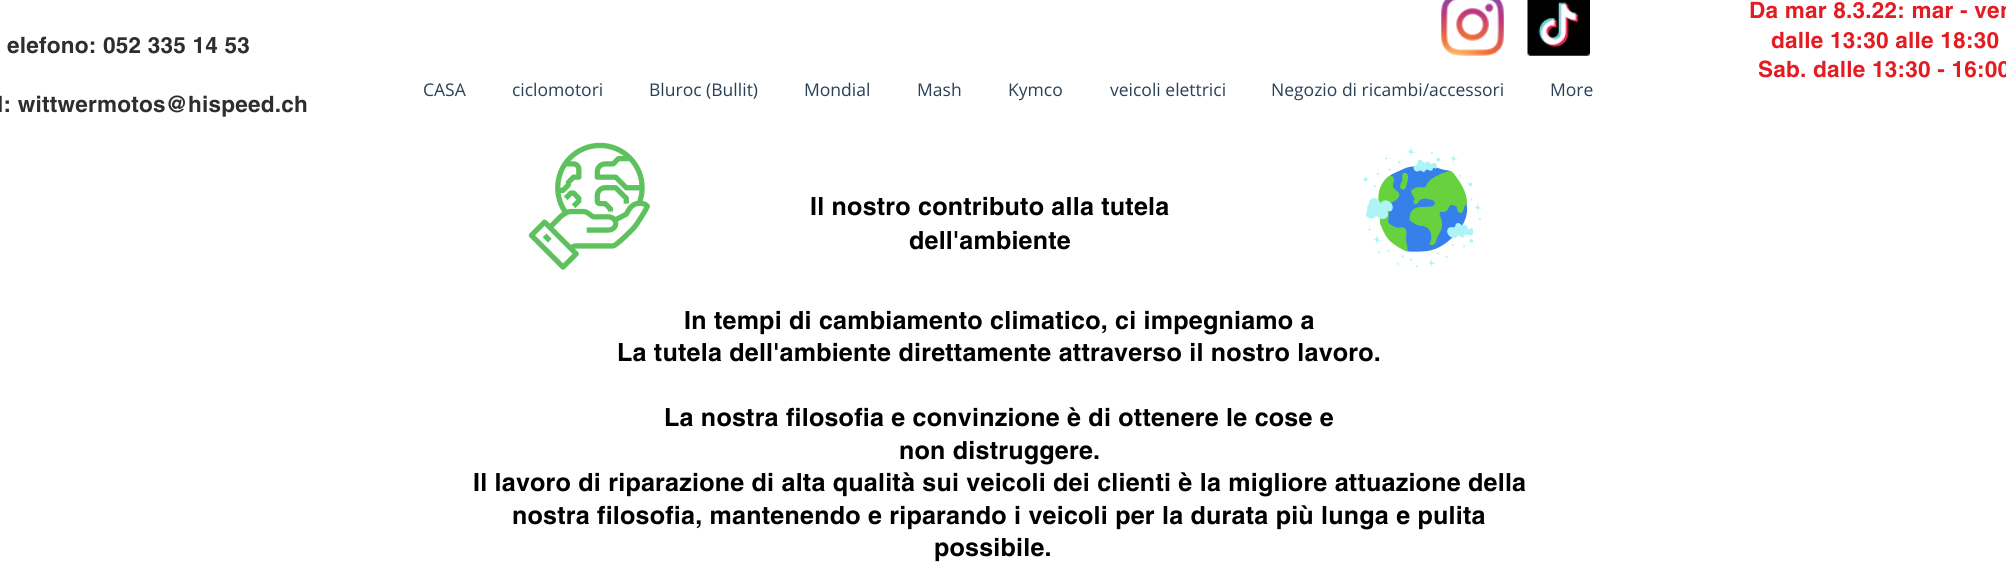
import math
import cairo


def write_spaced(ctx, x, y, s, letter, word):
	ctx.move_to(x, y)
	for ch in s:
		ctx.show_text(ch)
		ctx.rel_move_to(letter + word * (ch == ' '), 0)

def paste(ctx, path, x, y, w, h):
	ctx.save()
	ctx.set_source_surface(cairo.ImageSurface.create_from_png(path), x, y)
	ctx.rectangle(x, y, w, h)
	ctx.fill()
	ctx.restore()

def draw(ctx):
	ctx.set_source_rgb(1, 1, 1)
	ctx.paint()
	ctx.select_font_face('helvetica', cairo.FONT_SLANT_NORMAL, cairo.FONT_WEIGHT_BOLD)
	ctx.set_font_size(22.5)
	ctx.set_source_rgb(0.184, 0.18, 0.18)
	write_spaced(ctx, 7, 53, 'elefono: 052 335 14 53', 0.25, 0)
	write_spaced(ctx, -3, 112, 'l: wittwermotos@hispeed.ch', 0.25, 0)
	paste(ctx, 'media/1.png', 1441, 0, 63, 56)
	paste(ctx, 'media/2.png', 1527, 0, 63, 56)
	ctx.set_source_rgb(0.886, 0.11, 0.129)
	for x, y, s in [
		(1749, 18, 'Da mar 8.3.22: mar - ven'),
		(1771, 48, 'dalle 13:30 alle 18:30'),
		(1758, 77, 'Sab. dalle 13:30 - 16:00'),
	]:
		write_spaced(ctx, x, y, s, 0.25, 0)
	ctx.select_font_face('Open Sans')
	ctx.set_font_size(17.5)
	ctx.set_source_rgb(0.161, 0.251, 0.341)
	for x, y, s in [
		(423, 96, 'CASA'),
		(512, 96, 'ciclomotori'),
		(649, 96, 'Bluroc (Bullit)'),
		(804, 96, 'Mondial'),
		(917, 96, 'Mash'),
		(1008, 96, 'Kymco'),
		(1110, 96, 'veicoli elettrici'),
		(1271, 96, 'Negozio di ricambi/accessori'),
		(1550, 96, 'More'),
	]:
		ctx.move_to(x, y)
		ctx.show_text(s)
	paste(ctx, 'media/3.png', 528, 142, 122, 128)
	ctx.select_font_face('helvetica', cairo.FONT_SLANT_NORMAL, cairo.FONT_WEIGHT_BOLD)
	ctx.set_font_size(25)
	ctx.set_source_rgb(0, 0, 0)
	write_spaced(ctx, 810, 215, 'Il nostro contributo alla tutela', 0.25, 0)
	write_spaced(ctx, 909, 249, 'dell\'ambiente', 0.25, 0)
	paste(ctx, 'media/4.png', 1363, 143, 120, 125)
	for x, y, s in [
		(684, 329, 'In tempi di cambiamento climatico, ci impegniamo a'),
		(617, 361, 'La tutela dell\'ambiente direttamente attraverso il nostro lavoro.'),
		(664, 426, 'La nostra filosofia e convinzione è di ottenere le cose e'),
		(899, 459, 'non distruggere.'),
		(473, 491, 'Il lavoro di riparazione di alta qualità sui veicoli dei clienti è la migliore attuazione della'),
		(512, 524, 'nostra filosofia, mantenendo e riparando i veicoli per la durata più lunga e pulita'),
		(934, 556, 'possibile.'),
	]:
		write_spaced(ctx, x, y, s, 0.25, 0)


surface = cairo.ImageSurface(cairo.FORMAT_RGB24, 2006, 567)
ctx = cairo.Context(surface)
options = cairo.FontOptions()
options.set_hint_metrics(cairo.HINT_METRICS_OFF)
options.set_hint_style(cairo.HINT_STYLE_NONE)
ctx.set_font_options(options)
ctx.set_miter_limit(4)
draw(ctx)
surface.write_to_png('image.png')
